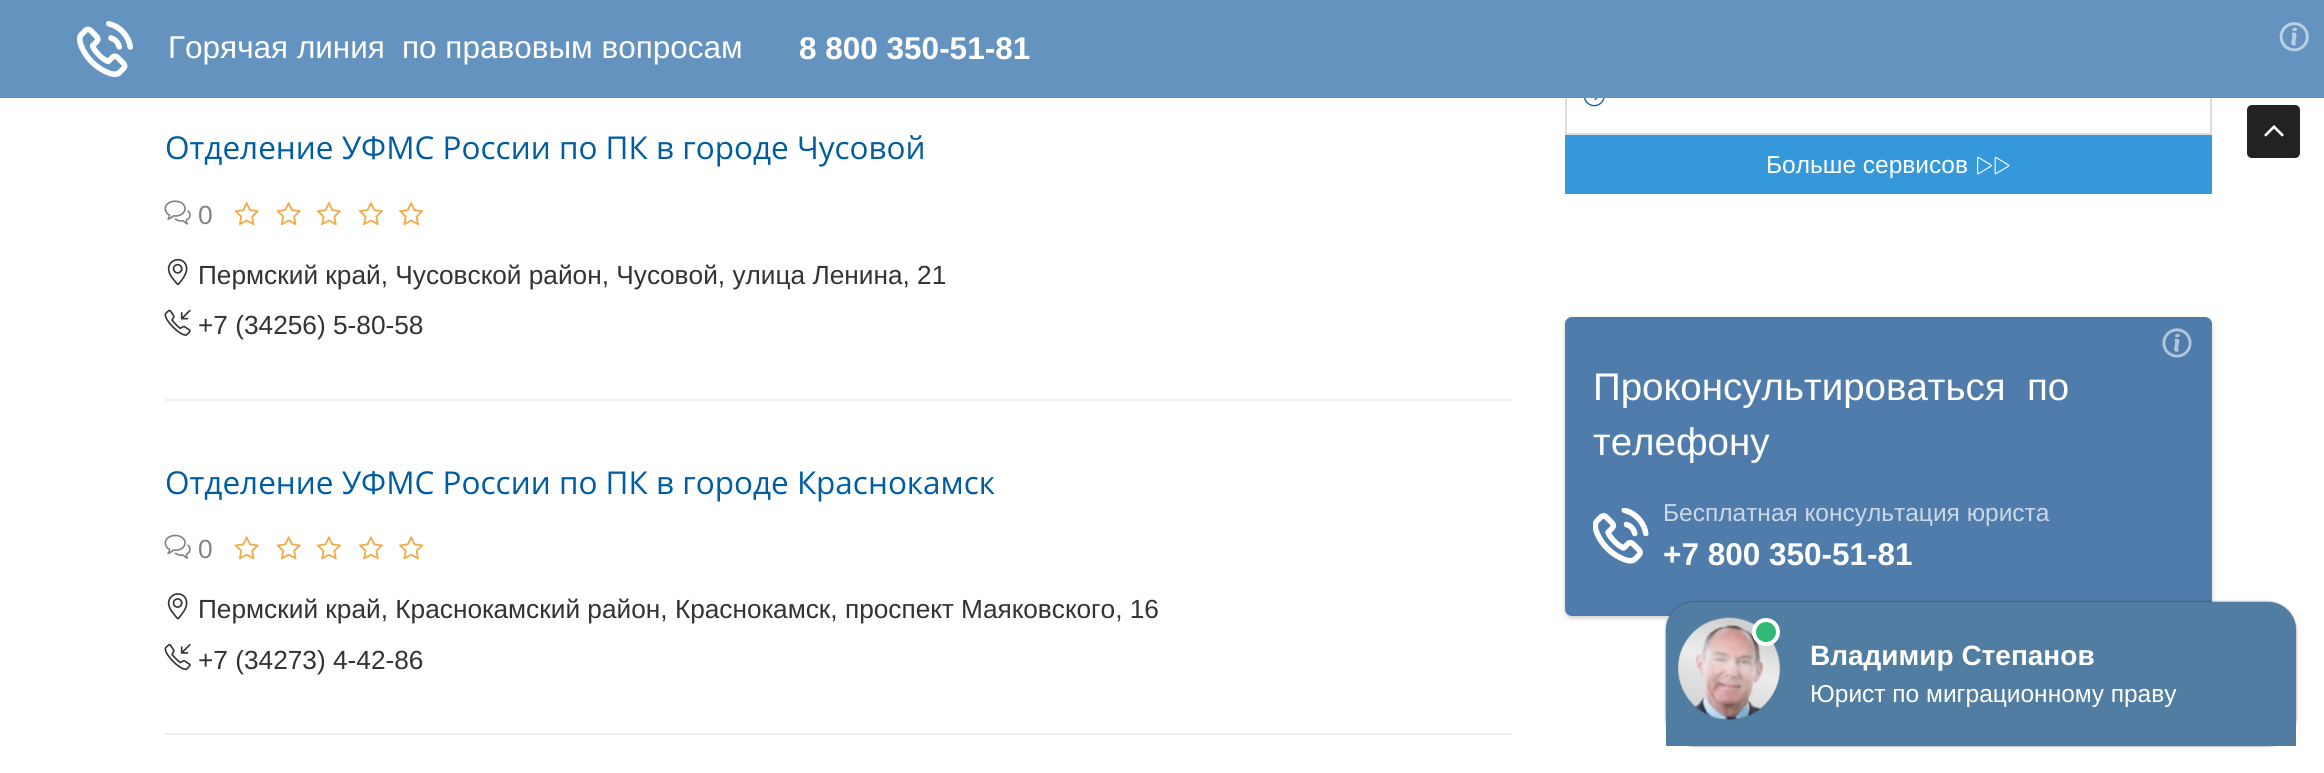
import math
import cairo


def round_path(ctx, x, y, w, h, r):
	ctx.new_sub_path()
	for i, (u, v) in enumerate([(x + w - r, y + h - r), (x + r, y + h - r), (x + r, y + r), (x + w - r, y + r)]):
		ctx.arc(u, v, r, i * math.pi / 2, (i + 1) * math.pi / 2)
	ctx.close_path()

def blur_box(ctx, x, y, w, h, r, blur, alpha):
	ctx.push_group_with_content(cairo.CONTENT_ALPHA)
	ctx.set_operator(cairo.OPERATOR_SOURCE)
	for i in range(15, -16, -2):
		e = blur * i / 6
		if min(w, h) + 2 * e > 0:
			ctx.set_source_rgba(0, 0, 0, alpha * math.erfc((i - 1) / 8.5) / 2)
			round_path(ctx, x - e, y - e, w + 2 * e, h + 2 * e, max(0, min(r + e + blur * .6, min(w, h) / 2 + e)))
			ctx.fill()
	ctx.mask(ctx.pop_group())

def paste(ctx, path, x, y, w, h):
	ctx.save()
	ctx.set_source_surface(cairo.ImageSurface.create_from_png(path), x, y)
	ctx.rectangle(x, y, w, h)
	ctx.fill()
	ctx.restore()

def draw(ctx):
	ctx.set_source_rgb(1, 1, 1)
	ctx.paint()
	ctx.rectangle(1566, 59, 645, 75)
	ctx.set_source_rgb(0.867, 0.867, 0.867)
	ctx.stroke()
	ctx.set_source_rgb(0.392, 0.576, 0.753)
	ctx.rectangle(0, 0, 2324, 98)
	ctx.fill()
	paste(ctx, 'media/1.png', 77, 21, 56, 56)
	ctx.select_font_face('Liberation Sans')
	ctx.set_font_size(31.5)
	ctx.set_source_rgb(1, 1, 1)
	ctx.move_to(168, 58)
	ctx.show_text('Горячая линия')
	ctx.move_to(402, 58)
	ctx.show_text('по правовым вопросам')
	ctx.select_font_face('Liberation Sans', cairo.FONT_SLANT_NORMAL, cairo.FONT_WEIGHT_BOLD)
	ctx.move_to(799, 59)
	ctx.show_text('8 800 350-51-81')
	paste(ctx, 'media/2.png', 2279, 22, 30, 30)
	ctx.select_font_face('Open Sans')
	ctx.set_source_rgb(0, 0.365, 0.635)
	ctx.move_to(165, 159)
	ctx.show_text('Отделение УФМС России по ПК в городе Чусовой')
	paste(ctx, 'media/3.png', 164, 200, 27, 25)
	ctx.select_font_face('Liberation Sans')
	ctx.set_font_size(26.25)
	ctx.set_source_rgb(0.51, 0.51, 0.51)
	ctx.move_to(198, 224)
	ctx.show_text('0')
	paste(ctx, 'media/4.png', 234, 202, 25, 24)
	paste(ctx, 'media/4.png', 276, 202, 25, 24)
	paste(ctx, 'media/5.png', 316, 202, 26, 24)
	paste(ctx, 'media/5.png', 358, 202, 26, 24)
	paste(ctx, 'media/6.png', 399, 202, 25, 24)
	paste(ctx, 'media/7.png', 167, 258, 21, 28)
	ctx.set_source_rgb(0.2, 0.2, 0.2)
	ctx.move_to(198, 284)
	ctx.show_text('Пермский край, Чусовской район, Чусовой, улица Ленина, 21')
	paste(ctx, 'media/8.png', 164, 309, 27, 27)
	ctx.move_to(198, 334)
	ctx.show_text('+7 (34256) 5-80-58')
	ctx.set_source_rgb(0.933, 0.933, 0.933)
	ctx.rectangle(165, 399, 1347, 2)
	ctx.fill()
	ctx.select_font_face('Open Sans')
	ctx.set_font_size(31.5)
	ctx.set_source_rgb(0, 0.365, 0.635)
	ctx.move_to(165, 494)
	ctx.show_text('Отделение УФМС России по ПК в городе Краснокамск')
	paste(ctx, 'media/9.png', 164, 534, 27, 25)
	ctx.select_font_face('Liberation Sans')
	ctx.set_font_size(26.25)
	ctx.set_source_rgb(0.51, 0.51, 0.51)
	ctx.move_to(198, 558)
	ctx.show_text('0')
	paste(ctx, 'media/10.png', 234, 536, 25, 24)
	paste(ctx, 'media/10.png', 276, 536, 25, 24)
	paste(ctx, 'media/11.png', 316, 536, 26, 24)
	paste(ctx, 'media/11.png', 358, 536, 26, 24)
	paste(ctx, 'media/12.png', 399, 536, 25, 24)
	paste(ctx, 'media/13.png', 167, 593, 21, 27)
	ctx.set_source_rgb(0.2, 0.2, 0.2)
	ctx.move_to(198, 618)
	ctx.show_text('Пермский край, Краснокамский район, Краснокамск, проспект Маяковского, 16')
	paste(ctx, 'media/14.png', 164, 643, 27, 28)
	ctx.move_to(198, 669)
	ctx.show_text('+7 (34273) 4-42-86')
	ctx.set_source_rgb(0.933, 0.933, 0.933)
	ctx.rectangle(165, 733, 1347, 2)
	ctx.fill()
	paste(ctx, 'media/15.png', 1584, 98, 21, 9)
	ctx.set_source_rgb(0.204, 0.596, 0.859)
	ctx.rectangle(1565, 135, 647, 59)
	ctx.fill()
	ctx.set_font_size(24.5)
	ctx.set_source_rgb(1, 1, 1)
	ctx.move_to(1766, 173)
	ctx.show_text('Больше сервисов')
	paste(ctx, 'media/16.png', 1977, 156, 15, 19)
	paste(ctx, 'media/17.png', 1994, 156, 16, 19)
	ctx.set_source_rgb(0, 0, 0)
	blur_box(ctx, 1565, 319, 647, 299, 7, 2.5, 0.2)
	ctx.set_source_rgb(0.314, 0.486, 0.675)
	round_path(ctx, 1565, 317, 647, 299, 7)
	ctx.fill()
	paste(ctx, 'media/18.png', 2162, 328, 30, 30)
	ctx.set_font_size(38.5)
	ctx.set_source_rgb(1, 1, 1)
	for x, y, s in [
		(1593, 400, 'Проконсультироваться'),
		(2027, 400, 'по'),
		(1593, 455, 'телефону'),
	]:
		ctx.move_to(x, y)
		ctx.show_text(s)
	paste(ctx, 'media/19.png', 1593, 508, 56, 56)
	ctx.set_font_size(24.5)
	ctx.set_source_rgb(0.796, 0.847, 0.902)
	ctx.move_to(1663, 521)
	ctx.show_text('Бесплатная консультация юриста')
	ctx.select_font_face('Liberation Sans', cairo.FONT_SLANT_NORMAL, cairo.FONT_WEIGHT_BOLD)
	ctx.set_font_size(31.5)
	ctx.set_source_rgb(1, 1, 1)
	ctx.move_to(1663, 565)
	ctx.show_text('+7 800 350-51-81')
	ctx.set_source_rgb(0.133, 0.133, 0.133)
	round_path(ctx, 2247, 105, 53, 53, 5)
	ctx.fill()
	paste(ctx, 'media/20.png', 2264, 125, 20, 12)
	ctx.set_source_rgb(0, 0, 0)
	blur_box(ctx, 1666, 602, 630, 144, 28, 1, 0.6)
	ctx.set_source_rgb(0.318, 0.49, 0.635)
	ctx.new_path()
	ctx.move_to(1694, 602)
	ctx.line_to(2268, 602)
	ctx.curve_to(2283.5, 602, 2296, 614.5, 2296, 630)
	ctx.line_to(2296, 746)
	ctx.line_to(1666, 746)
	ctx.line_to(1666, 630)
	ctx.curve_to(1666, 614.5, 1678.5, 602, 1694, 602)
	ctx.close_path()
	ctx.fill()
	ctx.set_source_rgb(0.239, 0.369, 0.478)
	round_path(ctx, 1678, 618, 102, 101, 50.5)
	ctx.fill()
	paste(ctx, 'media/21.png', 1678, 617, 103, 103)
	gradient = cairo.LinearGradient(1746, 627, 1712, 722)
	gradient.add_color_stop_rgba(0, 1, 1, 1, 0)
	gradient.add_color_stop_rgba(0.4, 1, 1, 1, 0.6)
	gradient.add_color_stop_rgba(0.6, 1, 1, 1, 0.36)
	gradient.add_color_stop_rgba(1, 1, 1, 1, 0)
	ctx.set_source(gradient)
	ctx.new_path()
	ctx.move_to(1723, 618)
	ctx.line_to(1767, 634)
	ctx.curve_to(1775, 643, 1780, 655, 1780, 668)
	ctx.curve_to(1780, 696, 1757, 719, 1730, 719)
	ctx.line_to(1728, 719)
	ctx.curve_to(1701, 719, 1678, 696, 1678, 668)
	ctx.curve_to(1678, 643, 1697, 621, 1723, 618)
	ctx.close_path()
	ctx.fill()
	ctx.set_source_rgb(0.192, 0.725, 0.471)
	ctx.arc(1766, 632, 12, 0, 2 * math.pi)
	ctx.fill_preserve()
	ctx.set_source_rgb(1, 1, 1)
	ctx.set_line_width(4)
	ctx.stroke()
	ctx.set_font_size(28)
	ctx.move_to(1810, 665)
	ctx.show_text('Владимир Степанов')
	ctx.select_font_face('Liberation Sans')
	ctx.set_font_size(24.5)
	ctx.move_to(1810, 702)
	ctx.show_text('Юрист по миграционному праву')


surface = cairo.ImageSurface(cairo.FORMAT_RGB24, 2324, 773)
ctx = cairo.Context(surface)
options = cairo.FontOptions()
options.set_hint_metrics(cairo.HINT_METRICS_OFF)
options.set_hint_style(cairo.HINT_STYLE_NONE)
ctx.set_font_options(options)
ctx.set_miter_limit(4)
draw(ctx)
surface.write_to_png('image.png')
